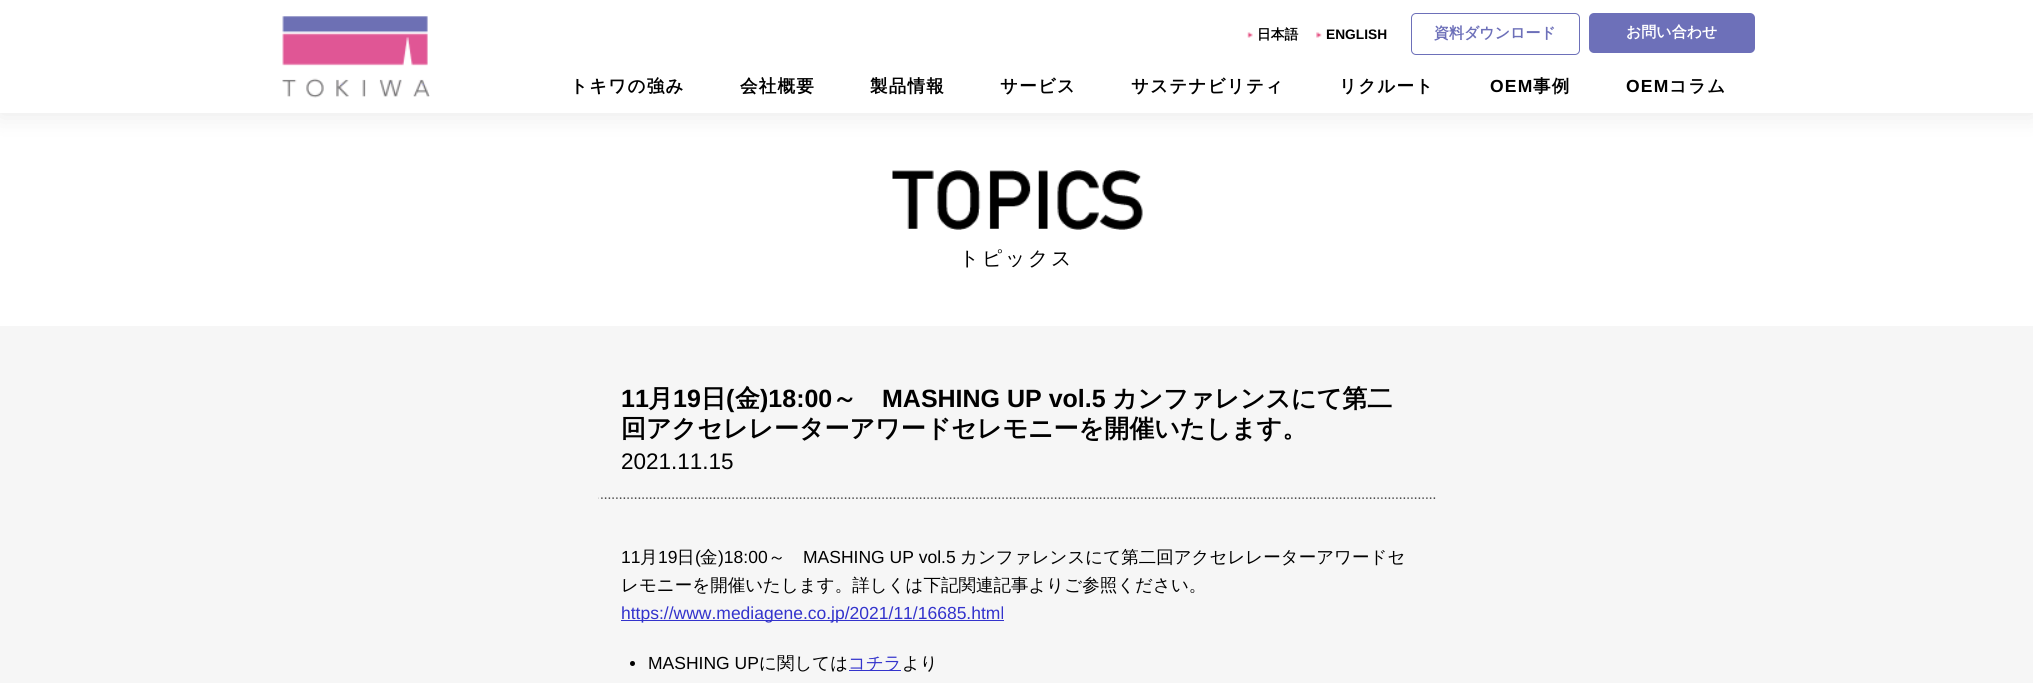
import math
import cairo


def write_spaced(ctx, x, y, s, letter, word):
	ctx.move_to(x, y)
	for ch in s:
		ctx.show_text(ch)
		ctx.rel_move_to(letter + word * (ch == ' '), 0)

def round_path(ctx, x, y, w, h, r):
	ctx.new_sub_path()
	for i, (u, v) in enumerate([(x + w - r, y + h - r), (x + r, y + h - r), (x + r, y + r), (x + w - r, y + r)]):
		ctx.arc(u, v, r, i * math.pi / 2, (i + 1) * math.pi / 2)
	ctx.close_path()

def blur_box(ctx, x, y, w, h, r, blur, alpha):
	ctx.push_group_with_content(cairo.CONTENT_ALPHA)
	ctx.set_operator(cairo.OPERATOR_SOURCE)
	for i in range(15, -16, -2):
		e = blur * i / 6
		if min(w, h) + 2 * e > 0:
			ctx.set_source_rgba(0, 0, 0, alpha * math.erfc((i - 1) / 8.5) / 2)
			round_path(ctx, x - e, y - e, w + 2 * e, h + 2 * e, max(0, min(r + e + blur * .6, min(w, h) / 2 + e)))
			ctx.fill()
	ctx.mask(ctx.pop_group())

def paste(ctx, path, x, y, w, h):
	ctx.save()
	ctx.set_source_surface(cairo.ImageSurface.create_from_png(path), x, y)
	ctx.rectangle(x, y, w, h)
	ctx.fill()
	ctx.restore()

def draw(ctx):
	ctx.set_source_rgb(1, 1, 1)
	ctx.paint()
	ctx.set_source_rgb(0, 0, 0)
	blur_box(ctx, 0, 1, 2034, 113, 0, 12.5, 0.1)
	ctx.set_source_rgb(1, 1, 1)
	ctx.rectangle(0, 0, 2033, 113)
	ctx.fill()
	paste(ctx, 'media/1.png', 282, 16, 148, 82)
	paste(ctx, 'media/2.png', 1247, 32, 6, 6)
	ctx.select_font_face('WenQuanYi Zen Hei', cairo.FONT_SLANT_NORMAL, cairo.FONT_WEIGHT_BOLD)
	ctx.set_font_size(13.75)
	ctx.set_source_rgb(0, 0, 0)
	ctx.move_to(1257, 39)
	ctx.show_text('日本語')
	paste(ctx, 'media/3.png', 1316, 32, 6, 6)
	ctx.select_font_face('Liberation Sans', cairo.FONT_SLANT_NORMAL, cairo.FONT_WEIGHT_BOLD)
	ctx.move_to(1326, 39)
	ctx.show_text('ENGLISH')
	round_path(ctx, 1411.5, 13.5, 168, 41, 4.5)
	ctx.set_source_rgb(0.427, 0.439, 0.725)
	ctx.set_line_width(1)
	ctx.stroke()
	ctx.select_font_face('WenQuanYi Zen Hei', cairo.FONT_SLANT_NORMAL, cairo.FONT_WEIGHT_BOLD)
	ctx.set_font_size(15)
	ctx.move_to(1434, 38)
	ctx.show_text('資料ダウンロード')
	round_path(ctx, 1589, 13, 166, 40, 5)
	ctx.fill()
	ctx.set_source_rgb(1, 1, 1)
	ctx.move_to(1626, 37)
	ctx.show_text('お問い合わせ')
	ctx.set_font_size(17.5)
	ctx.set_source_rgb(0, 0, 0)
	for x, y, s in [
		(570, 92, 'トキワの強み'),
		(740, 92, '会社概要'),
		(870, 92, '製品情報'),
		(1000, 92, 'サービス'),
		(1131, 92, 'サステナビリティ'),
		(1339, 92, 'リクルート'),
	]:
		write_spaced(ctx, x, y, s, 1.25, 0)
	ctx.select_font_face('Liberation Sans', cairo.FONT_SLANT_NORMAL, cairo.FONT_WEIGHT_BOLD)
	write_spaced(ctx, 1490, 92, 'OEM', 1.25, 0)
	ctx.select_font_face('WenQuanYi Zen Hei', cairo.FONT_SLANT_NORMAL, cairo.FONT_WEIGHT_BOLD)
	write_spaced(ctx, 1533, 92, '事例', 1.25, 0)
	ctx.select_font_face('Liberation Sans', cairo.FONT_SLANT_NORMAL, cairo.FONT_WEIGHT_BOLD)
	write_spaced(ctx, 1626, 92, 'OEM', 1.25, 0)
	ctx.select_font_face('WenQuanYi Zen Hei', cairo.FONT_SLANT_NORMAL, cairo.FONT_WEIGHT_BOLD)
	write_spaced(ctx, 1669, 92, 'コラム', 1.25, 0)
	paste(ctx, 'media/4.png', 892, 170, 251, 60)
	ctx.select_font_face('WenQuanYi Zen Hei Medium')
	ctx.set_font_size(20)
	write_spaced(ctx, 959, 265, 'トピックス', 2.5, 0)
	ctx.set_source_rgb(0.961, 0.961, 0.961)
	ctx.rectangle(0, 326, 2033, 357)
	ctx.fill()
	paste(ctx, 'media/5.png', 598, 497, 838, 2)
	ctx.select_font_face('Liberation Sans', cairo.FONT_SLANT_NORMAL, cairo.FONT_WEIGHT_BOLD)
	ctx.set_font_size(25)
	ctx.set_source_rgb(0, 0, 0)
	ctx.move_to(621, 407)
	ctx.show_text('11')
	ctx.select_font_face('WenQuanYi Zen Hei', cairo.FONT_SLANT_NORMAL, cairo.FONT_WEIGHT_BOLD)
	ctx.move_to(648, 407)
	ctx.show_text('月')
	ctx.select_font_face('Liberation Sans', cairo.FONT_SLANT_NORMAL, cairo.FONT_WEIGHT_BOLD)
	ctx.move_to(673, 407)
	ctx.show_text('19')
	ctx.select_font_face('WenQuanYi Zen Hei', cairo.FONT_SLANT_NORMAL, cairo.FONT_WEIGHT_BOLD)
	ctx.move_to(701, 407)
	ctx.show_text('日')
	ctx.select_font_face('Liberation Sans', cairo.FONT_SLANT_NORMAL, cairo.FONT_WEIGHT_BOLD)
	ctx.move_to(726, 407)
	ctx.show_text('(')
	ctx.select_font_face('WenQuanYi Zen Hei', cairo.FONT_SLANT_NORMAL, cairo.FONT_WEIGHT_BOLD)
	ctx.move_to(735, 407)
	ctx.show_text('金')
	ctx.select_font_face('Liberation Sans', cairo.FONT_SLANT_NORMAL, cairo.FONT_WEIGHT_BOLD)
	ctx.move_to(760, 407)
	ctx.show_text(')18:00')
	ctx.select_font_face('WenQuanYi Zen Hei', cairo.FONT_SLANT_NORMAL, cairo.FONT_WEIGHT_BOLD)
	ctx.move_to(832, 407)
	ctx.show_text('～')
	ctx.select_font_face('Liberation Sans', cairo.FONT_SLANT_NORMAL, cairo.FONT_WEIGHT_BOLD)
	ctx.move_to(882, 407)
	ctx.show_text('MASHING UP vol.5')
	ctx.select_font_face('WenQuanYi Zen Hei', cairo.FONT_SLANT_NORMAL, cairo.FONT_WEIGHT_BOLD)
	ctx.move_to(1112, 407)
	ctx.show_text('カンファレンスにて第二')
	ctx.move_to(621, 437)
	ctx.show_text('回アクセレレーターアワードセレモニーを開催いたします。')
	ctx.select_font_face('Liberation Sans')
	ctx.set_font_size(22.5)
	ctx.move_to(621, 469)
	ctx.show_text('2021.11.15')
	ctx.set_font_size(17.5)
	ctx.move_to(621, 563)
	ctx.show_text('11')
	ctx.select_font_face('WenQuanYi Zen Hei Medium')
	ctx.move_to(640, 563)
	ctx.show_text('月')
	ctx.select_font_face('Liberation Sans')
	ctx.move_to(658, 563)
	ctx.show_text('19')
	ctx.select_font_face('WenQuanYi Zen Hei Medium')
	ctx.move_to(677, 563)
	ctx.show_text('日')
	ctx.select_font_face('Liberation Sans')
	ctx.move_to(695, 563)
	ctx.show_text('(')
	ctx.select_font_face('WenQuanYi Zen Hei Medium')
	ctx.move_to(700, 563)
	ctx.show_text('金')
	ctx.select_font_face('Liberation Sans')
	ctx.move_to(718, 563)
	ctx.show_text(')18:00')
	ctx.select_font_face('WenQuanYi Zen Hei Medium')
	ctx.move_to(768, 563)
	ctx.show_text('～')
	ctx.select_font_face('Liberation Sans')
	ctx.move_to(803, 563)
	ctx.show_text('MASHING UP vol.5')
	ctx.select_font_face('WenQuanYi Zen Hei Medium')
	ctx.move_to(960, 563)
	ctx.show_text('カンファレンスにて第二回アクセレレーターアワードセ')
	ctx.move_to(621, 591)
	ctx.show_text('レモニーを開催いたします。詳しくは下記関連記事よりご参照ください。')
	ctx.set_source_rgb(0.2, 0.2, 0.8)
	ctx.rectangle(621, 620, 383, 1)
	ctx.fill()
	ctx.select_font_face('Liberation Sans')
	ctx.move_to(621, 619)
	ctx.show_text('https://www.mediagene.co.jp/2021/11/16685.html')
	ctx.set_source_rgb(0, 0, 0)
	ctx.new_path()
	ctx.arc(632.5, 663.5, 2.5, 0, 2 * math.pi)
	ctx.fill()
	ctx.move_to(648, 669)
	ctx.show_text('MASHING UP')
	ctx.select_font_face('WenQuanYi Zen Hei Medium')
	ctx.move_to(759, 669)
	ctx.show_text('に関しては')
	ctx.set_source_rgb(0.2, 0.2, 0.8)
	ctx.rectangle(849, 670, 52, 1)
	ctx.fill()
	ctx.move_to(848, 669)
	ctx.show_text('コチラ')
	ctx.set_source_rgb(0, 0, 0)
	ctx.move_to(902, 669)
	ctx.show_text('より')


surface = cairo.ImageSurface(cairo.FORMAT_RGB24, 2033, 683)
ctx = cairo.Context(surface)
options = cairo.FontOptions()
options.set_hint_metrics(cairo.HINT_METRICS_OFF)
options.set_hint_style(cairo.HINT_STYLE_NONE)
ctx.set_font_options(options)
ctx.set_miter_limit(4)
draw(ctx)
surface.write_to_png('image.png')
